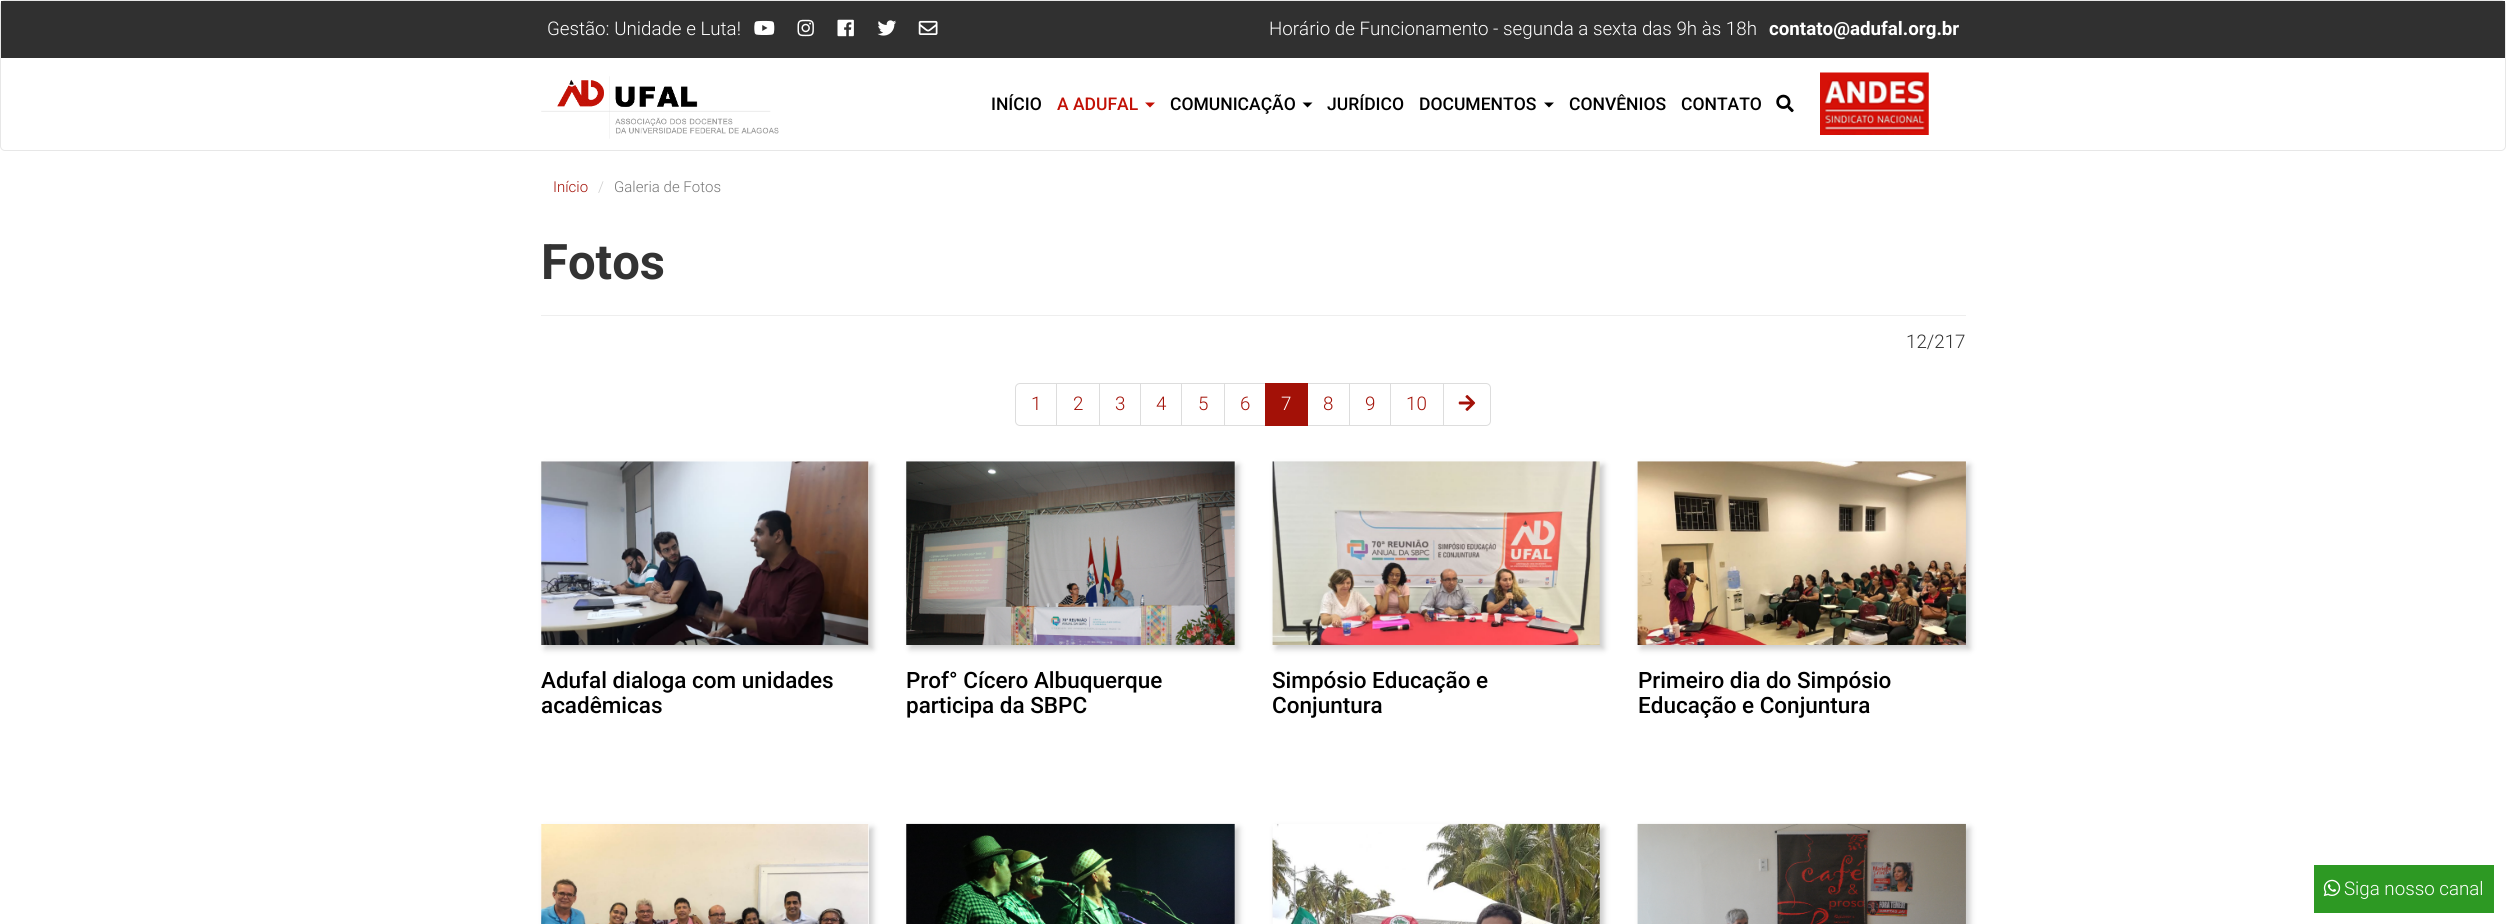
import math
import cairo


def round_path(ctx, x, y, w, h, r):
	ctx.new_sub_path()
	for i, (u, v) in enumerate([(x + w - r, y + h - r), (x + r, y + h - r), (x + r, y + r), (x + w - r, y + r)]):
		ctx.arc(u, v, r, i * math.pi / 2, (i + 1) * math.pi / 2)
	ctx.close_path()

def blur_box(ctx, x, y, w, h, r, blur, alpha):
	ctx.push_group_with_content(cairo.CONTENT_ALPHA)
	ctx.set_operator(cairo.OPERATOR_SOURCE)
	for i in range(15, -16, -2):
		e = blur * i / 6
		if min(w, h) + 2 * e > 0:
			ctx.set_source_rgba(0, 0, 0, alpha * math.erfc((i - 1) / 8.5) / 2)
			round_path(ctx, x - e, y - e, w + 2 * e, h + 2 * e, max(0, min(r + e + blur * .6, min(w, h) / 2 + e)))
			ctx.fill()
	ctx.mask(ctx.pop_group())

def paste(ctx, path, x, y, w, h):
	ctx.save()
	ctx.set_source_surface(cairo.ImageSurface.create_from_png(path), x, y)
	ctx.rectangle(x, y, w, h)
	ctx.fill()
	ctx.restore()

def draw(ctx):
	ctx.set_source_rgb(1, 1, 1)
	ctx.paint()
	round_path(ctx, 0.5, 0.5, 2505, 150, 4.5)
	ctx.set_source_rgb(0.906, 0.906, 0.906)
	ctx.set_line_width(1)
	ctx.stroke()
	ctx.set_source_rgb(0.188, 0.188, 0.188)
	ctx.rectangle(1, 1, 2504, 57)
	ctx.fill()
	ctx.select_font_face('Roboto Light')
	ctx.set_font_size(18.75)
	ctx.set_source_rgb(1, 1, 1)
	ctx.move_to(547, 35)
	ctx.show_text('Gestão: Unidade e Luta!')
	paste(ctx, 'media/1.png', 754, 20, 21, 15)
	paste(ctx, 'media/2.png', 797, 19, 17, 18)
	paste(ctx, 'media/3.png', 837, 19, 17, 18)
	paste(ctx, 'media/4.png', 877, 20, 20, 16)
	paste(ctx, 'media/5.png', 918, 20, 20, 15)
	ctx.move_to(1269, 35)
	ctx.show_text('Horário de Funcionamento - segunda a sexta das 9h às 18h')
	ctx.select_font_face('Roboto', cairo.FONT_SLANT_NORMAL, cairo.FONT_WEIGHT_BOLD)
	ctx.move_to(1769, 35)
	ctx.show_text('contato@adufal.org.br')
	paste(ctx, 'media/6.png', 541, 76, 238, 63)
	ctx.select_font_face('Roboto Medium')
	ctx.set_font_size(17.5)
	ctx.set_source_rgb(0, 0, 0)
	ctx.move_to(991, 110)
	ctx.show_text('INÍCIO')
	ctx.set_source_rgb(0.761, 0.063, 0.02)
	ctx.move_to(1057, 110)
	ctx.show_text('A ADUFAL')
	ctx.new_path()
	ctx.move_to(1145, 102.5)
	ctx.line_to(1155, 102.5)
	ctx.line_to(1150, 107.5)
	ctx.close_path()
	ctx.fill()
	ctx.set_source_rgb(0, 0, 0)
	ctx.move_to(1170, 110)
	ctx.show_text('COMUNICAÇÃO')
	ctx.new_path()
	ctx.move_to(1302.5, 102.5)
	ctx.line_to(1312.5, 102.5)
	ctx.line_to(1307.5, 107.5)
	ctx.close_path()
	ctx.fill()
	ctx.move_to(1327, 110)
	ctx.show_text('JURÍDICO')
	ctx.move_to(1419, 110)
	ctx.show_text('DOCUMENTOS')
	ctx.new_path()
	ctx.move_to(1544, 102.5)
	ctx.line_to(1554, 102.5)
	ctx.line_to(1549, 107.5)
	ctx.close_path()
	ctx.fill()
	ctx.move_to(1569, 110)
	ctx.show_text('CONVÊNIOS')
	ctx.move_to(1681, 110)
	ctx.show_text('CONTATO')
	paste(ctx, 'media/7.png', 1776, 94, 18, 19)
	paste(ctx, 'media/8.png', 1820, 72, 109, 63)
	ctx.select_font_face('Roboto Light')
	ctx.set_font_size(15)
	ctx.set_source_rgb(0.639, 0.067, 0.031)
	ctx.move_to(553, 192)
	ctx.show_text('Início')
	ctx.set_source_rgb(0.8, 0.8, 0.8)
	ctx.move_to(598, 192)
	ctx.show_text('/')
	ctx.set_source_rgb(0.467, 0.467, 0.467)
	ctx.move_to(614, 192)
	ctx.show_text('Galeria de Fotos')
	ctx.set_source_rgb(0.933, 0.933, 0.933)
	ctx.rectangle(541, 315, 1425, 1)
	ctx.fill()
	ctx.select_font_face('Roboto', cairo.FONT_SLANT_NORMAL, cairo.FONT_WEIGHT_BOLD)
	ctx.set_font_size(49)
	ctx.set_source_rgb(0.2, 0.2, 0.2)
	ctx.move_to(541, 279)
	ctx.show_text('Fotos')
	ctx.select_font_face('Roboto Light')
	ctx.set_font_size(18.75)
	ctx.move_to(1906, 348)
	ctx.show_text('12/217')
	ctx.new_path()
	ctx.move_to(1020, 383.5)
	ctx.line_to(1057.5, 383.5)
	ctx.line_to(1057.5, 425.5)
	ctx.line_to(1020, 425.5)
	ctx.curve_to(1017.5, 425.5, 1015.5, 423.5, 1015.5, 421)
	ctx.line_to(1015.5, 388)
	ctx.curve_to(1015.5, 385.5, 1017.5, 383.5, 1020, 383.5)
	ctx.close_path()
	ctx.set_source_rgb(0.867, 0.867, 0.867)
	ctx.stroke()
	ctx.set_source_rgb(0.639, 0.067, 0.031)
	ctx.move_to(1031, 410)
	ctx.show_text('1')
	ctx.set_source_rgb(1, 1, 1)
	ctx.rectangle(1057, 384, 1, 41)
	ctx.fill()
	ctx.rectangle(1056.5, 383.5, 43, 42)
	ctx.set_source_rgb(0.867, 0.867, 0.867)
	ctx.stroke()
	ctx.set_source_rgb(0.639, 0.067, 0.031)
	ctx.move_to(1073, 410)
	ctx.show_text('2')
	ctx.rectangle(1099.5, 383.5, 41, 42)
	ctx.set_source_rgb(0.867, 0.867, 0.867)
	ctx.stroke()
	ctx.set_source_rgb(0.639, 0.067, 0.031)
	ctx.move_to(1115, 410)
	ctx.show_text('3')
	ctx.rectangle(1140.5, 383.5, 42, 42)
	ctx.set_source_rgb(0.867, 0.867, 0.867)
	ctx.stroke()
	ctx.set_source_rgb(0.639, 0.067, 0.031)
	ctx.move_to(1156, 410)
	ctx.show_text('4')
	ctx.set_source_rgb(1, 1, 1)
	ctx.rectangle(1182, 384, 1, 41)
	ctx.fill()
	ctx.rectangle(1181.5, 383.5, 43, 42)
	ctx.set_source_rgb(0.867, 0.867, 0.867)
	ctx.stroke()
	ctx.set_source_rgb(0.639, 0.067, 0.031)
	ctx.move_to(1198, 410)
	ctx.show_text('5')
	ctx.rectangle(1224.5, 383.5, 41, 42)
	ctx.set_source_rgb(0.867, 0.867, 0.867)
	ctx.stroke()
	ctx.set_source_rgb(0.639, 0.067, 0.031)
	ctx.move_to(1240, 410)
	ctx.show_text('6')
	ctx.rectangle(1306.5, 383.5, 43, 42)
	ctx.set_source_rgb(0.867, 0.867, 0.867)
	ctx.stroke()
	ctx.set_source_rgb(0.639, 0.067, 0.031)
	ctx.rectangle(1265, 383, 43, 43)
	ctx.fill()
	ctx.set_source_rgb(1, 1, 1)
	ctx.move_to(1281, 410)
	ctx.show_text('7')
	ctx.set_source_rgb(0.639, 0.067, 0.031)
	ctx.move_to(1323, 410)
	ctx.show_text('8')
	ctx.rectangle(1349.5, 383.5, 41, 42)
	ctx.set_source_rgb(0.867, 0.867, 0.867)
	ctx.stroke()
	ctx.set_source_rgb(0.639, 0.067, 0.031)
	ctx.move_to(1365, 410)
	ctx.show_text('9')
	ctx.rectangle(1390.5, 383.5, 53, 42)
	ctx.set_source_rgb(0.867, 0.867, 0.867)
	ctx.stroke()
	ctx.set_source_rgb(0.639, 0.067, 0.031)
	ctx.move_to(1406, 410)
	ctx.show_text('10')
	ctx.set_source_rgb(1, 1, 1)
	ctx.new_path()
	ctx.move_to(1443.5, 383.5)
	ctx.line_to(1486, 383.5)
	ctx.curve_to(1488.5, 383.5, 1490.5, 385.5, 1490.5, 388)
	ctx.line_to(1490.5, 421)
	ctx.curve_to(1490.5, 423.5, 1488.5, 425.5, 1486, 425.5)
	ctx.line_to(1443.5, 425.5)
	ctx.close_path()
	ctx.fill_preserve()
	ctx.set_source_rgb(0.867, 0.867, 0.867)
	ctx.stroke()
	paste(ctx, 'media/9.png', 1458, 395, 18, 16)
	ctx.set_source_rgb(0.8, 0.8, 0.8)
	blur_box(ctx, 545, 465, 328, 184, 0, 3, 1)
	ctx.set_source_rgb(1, 1, 1)
	ctx.rectangle(541, 461, 328, 184)
	ctx.fill()
	paste(ctx, 'media/10.png', 541, 461, 328, 184)
	ctx.select_font_face('Roboto Medium')
	ctx.set_font_size(22.5)
	ctx.set_source_rgb(0, 0, 0)
	ctx.move_to(541, 688)
	ctx.show_text('Adufal dialoga com unidades')
	ctx.move_to(541, 713)
	ctx.show_text('acadêmicas')
	ctx.set_source_rgb(0.8, 0.8, 0.8)
	blur_box(ctx, 910, 465, 329, 184, 0, 3, 1)
	paste(ctx, 'media/11.png', 906, 461, 329, 184)
	ctx.set_source_rgb(0, 0, 0)
	ctx.move_to(906, 688)
	ctx.show_text('Prof° Cícero Albuquerque')
	ctx.move_to(906, 713)
	ctx.show_text('participa da SBPC')
	ctx.set_source_rgb(0.8, 0.8, 0.8)
	blur_box(ctx, 1276, 465, 328, 184, 0, 3, 1)
	paste(ctx, 'media/12.png', 1272, 461, 328, 184)
	ctx.set_source_rgb(0, 0, 0)
	ctx.move_to(1272, 688)
	ctx.show_text('Simpósio Educação e')
	ctx.move_to(1272, 713)
	ctx.show_text('Conjuntura')
	ctx.set_source_rgb(0.8, 0.8, 0.8)
	blur_box(ctx, 1641, 465, 329, 184, 0, 3, 1)
	paste(ctx, 'media/13.png', 1637, 461, 329, 184)
	ctx.set_source_rgb(0, 0, 0)
	ctx.move_to(1638, 688)
	ctx.show_text('Primeiro dia do Simpósio')
	ctx.move_to(1638, 713)
	ctx.show_text('Educação e Conjuntura')
	ctx.set_source_rgb(0.8, 0.8, 0.8)
	blur_box(ctx, 545, 828, 328, 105, 0, 3, 1)
	ctx.set_source_rgb(1, 1, 1)
	ctx.rectangle(541, 824, 328, 100)
	ctx.fill()
	paste(ctx, 'media/14.png', 541, 824, 328, 100)
	ctx.set_source_rgb(0.8, 0.8, 0.8)
	blur_box(ctx, 910, 828, 329, 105, 0, 3, 1)
	paste(ctx, 'media/15.png', 906, 823, 329, 101)
	blur_box(ctx, 1276, 828, 328, 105, 0, 3, 1)
	paste(ctx, 'media/16.png', 1272, 823, 328, 101)
	blur_box(ctx, 1641, 828, 329, 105, 0, 3, 1)
	paste(ctx, 'media/17.png', 1637, 823, 329, 101)
	ctx.set_source_rgb(0.176, 0.6, 0.137)
	ctx.rectangle(2314, 865, 180, 48)
	ctx.fill()
	paste(ctx, 'media/18.png', 2323, 879, 18, 18)
	ctx.select_font_face('Roboto Light')
	ctx.set_font_size(18.75)
	ctx.set_source_rgb(1, 1, 1)
	ctx.move_to(2344, 895)
	ctx.show_text('Siga nosso canal')


surface = cairo.ImageSurface(cairo.FORMAT_RGB24, 2506, 924)
ctx = cairo.Context(surface)
options = cairo.FontOptions()
options.set_hint_metrics(cairo.HINT_METRICS_OFF)
options.set_hint_style(cairo.HINT_STYLE_NONE)
ctx.set_font_options(options)
ctx.set_miter_limit(4)
draw(ctx)
surface.write_to_png('image.png')
